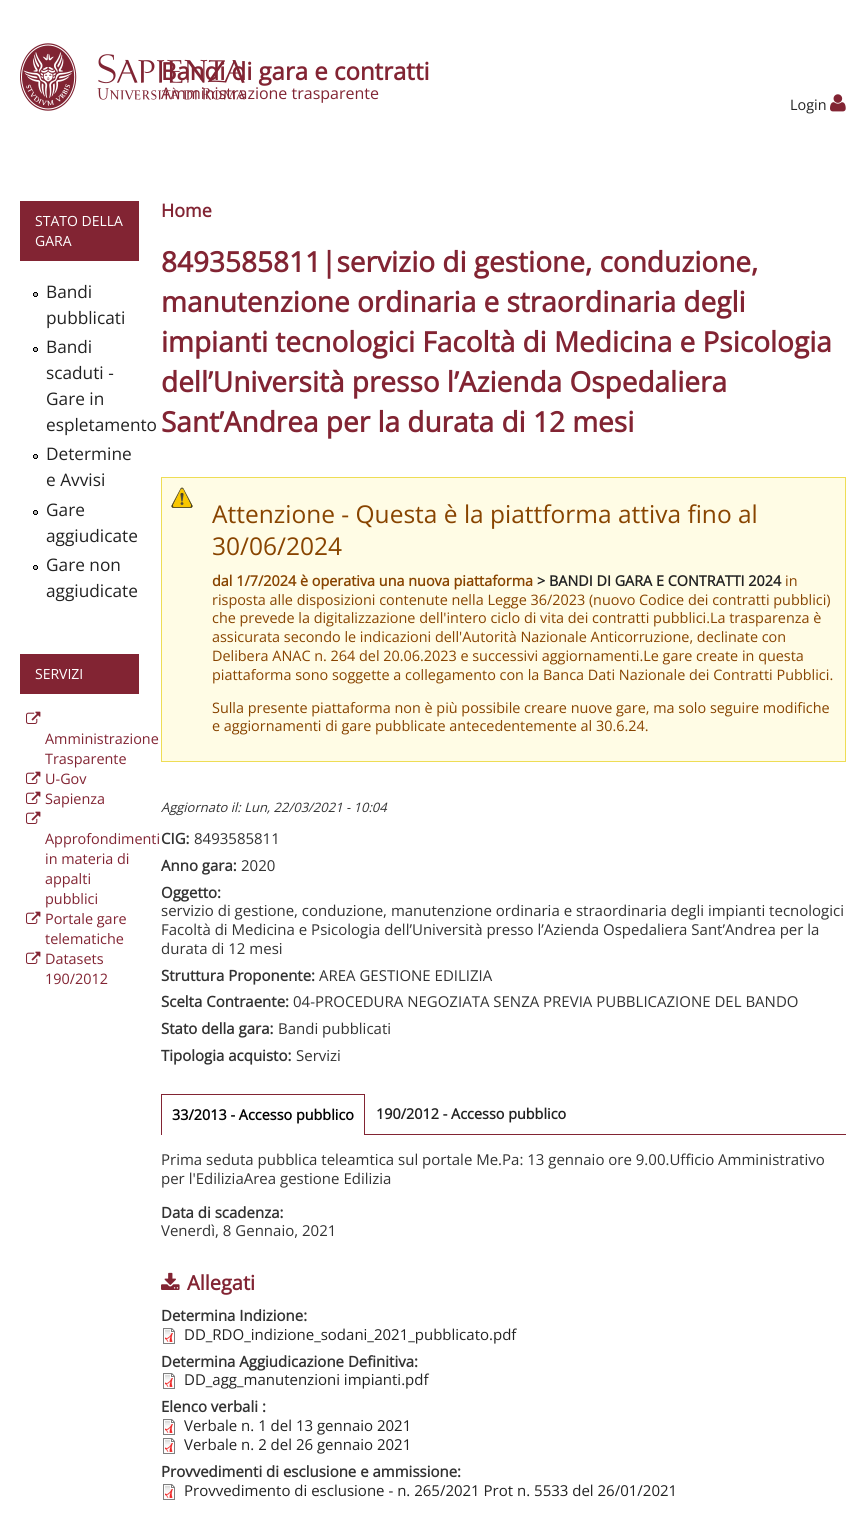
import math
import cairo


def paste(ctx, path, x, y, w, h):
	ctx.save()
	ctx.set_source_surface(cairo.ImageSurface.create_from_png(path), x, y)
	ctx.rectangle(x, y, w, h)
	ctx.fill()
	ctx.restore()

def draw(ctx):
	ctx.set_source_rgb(1, 1, 1)
	ctx.paint()
	paste(ctx, 'media/1.png', 20, 43, 225, 68)
	ctx.select_font_face('Open Sans', cairo.FONT_SLANT_NORMAL, cairo.FONT_WEIGHT_BOLD)
	ctx.set_font_size(24)
	ctx.set_source_rgb(0.51, 0.141, 0.2)
	ctx.move_to(161, 80)
	ctx.show_text('Bandi di gara e contratti')
	ctx.select_font_face('Open Sans')
	ctx.set_font_size(16)
	ctx.move_to(161, 99)
	ctx.show_text('Amministrazione trasparente')
	ctx.set_font_size(14.4)
	ctx.set_source_rgb(0.133, 0.133, 0.133)
	ctx.move_to(790, 110)
	ctx.show_text('Login')
	paste(ctx, 'media/2.png', 830, 94, 16, 18)
	ctx.set_source_rgb(0.51, 0.141, 0.2)
	ctx.rectangle(20, 201, 119, 60)
	ctx.fill()
	ctx.set_font_size(14)
	ctx.set_source_rgb(1, 1, 1)
	ctx.move_to(35, 226)
	ctx.show_text('STATO DELLA')
	ctx.move_to(35, 246)
	ctx.show_text('GARA')
	paste(ctx, 'media/3.png', 33, 292, 5, 5)
	ctx.set_font_size(17.25)
	ctx.set_source_rgb(0.133, 0.133, 0.133)
	ctx.move_to(46, 298)
	ctx.show_text('Bandi')
	ctx.move_to(46, 324)
	ctx.show_text('pubblicati')
	paste(ctx, 'media/3.png', 33, 347, 5, 5)
	for x, y, s in [
		(46, 353, 'Bandi'),
		(46, 379, 'scaduti -'),
		(46, 405, 'Gare in'),
		(46, 431, 'espletamento'),
	]:
		ctx.move_to(x, y)
		ctx.show_text(s)
	paste(ctx, 'media/3.png', 33, 454, 5, 5)
	ctx.move_to(46, 460)
	ctx.show_text('Determine')
	ctx.move_to(46, 486)
	ctx.show_text('e Avvisi')
	paste(ctx, 'media/3.png', 33, 510, 5, 5)
	ctx.move_to(46, 516)
	ctx.show_text('Gare')
	ctx.move_to(46, 542)
	ctx.show_text('aggiudicate')
	paste(ctx, 'media/3.png', 33, 565, 5, 5)
	ctx.move_to(46, 571)
	ctx.show_text('Gare non')
	ctx.move_to(46, 597)
	ctx.show_text('aggiudicate')
	ctx.set_source_rgb(0.51, 0.141, 0.2)
	ctx.rectangle(20, 654, 119, 40)
	ctx.fill()
	ctx.set_font_size(14)
	ctx.set_source_rgb(1, 1, 1)
	ctx.move_to(35, 679)
	ctx.show_text('SERVIZI')
	paste(ctx, 'media/4.png', 26, 711, 15, 13)
	ctx.set_font_size(14.4)
	ctx.set_source_rgb(0.51, 0.141, 0.2)
	ctx.move_to(45, 744)
	ctx.show_text('Amministrazione')
	ctx.move_to(45, 764)
	ctx.show_text('Trasparente')
	paste(ctx, 'media/4.png', 26, 771, 15, 13)
	ctx.move_to(45, 784)
	ctx.show_text('U-Gov')
	paste(ctx, 'media/4.png', 26, 791, 15, 13)
	ctx.move_to(45, 804)
	ctx.show_text('Sapienza')
	paste(ctx, 'media/4.png', 26, 811, 15, 13)
	for x, y, s in [
		(45, 844, 'Approfondimenti'),
		(45, 864, 'in materia di'),
		(45, 884, 'appalti'),
		(45, 904, 'pubblici'),
	]:
		ctx.move_to(x, y)
		ctx.show_text(s)
	paste(ctx, 'media/4.png', 26, 911, 15, 13)
	ctx.move_to(45, 924)
	ctx.show_text('Portale gare')
	ctx.move_to(45, 944)
	ctx.show_text('telematiche')
	paste(ctx, 'media/4.png', 26, 951, 15, 13)
	ctx.move_to(45, 964)
	ctx.show_text('Datasets')
	ctx.move_to(45, 984)
	ctx.show_text('190/2012')
	ctx.select_font_face('Open Sans', cairo.FONT_SLANT_NORMAL, cairo.FONT_WEIGHT_BOLD)
	ctx.set_font_size(18)
	ctx.move_to(161, 217)
	ctx.show_text('Home')
	ctx.set_font_size(28)
	for x, y, s in [
		(161, 272, '8493585811|servizio di gestione, conduzione,'),
		(161, 312, 'manutenzione ordinaria e straordinaria degli'),
		(161, 352, 'impianti tecnologici Facoltà di Medicina e Psicologia'),
		(161, 392, 'dell’Università presso l’Azienda Ospedaliera'),
		(161, 432, 'Sant’Andrea per la durata di 12 mesi'),
	]:
		ctx.move_to(x, y)
		ctx.show_text(s)
	ctx.set_source_rgb(1, 0.988, 0.898)
	ctx.rectangle(162, 478, 683, 283)
	ctx.fill()
	paste(ctx, 'media/5.png', 171, 487, 22, 22)
	ctx.rectangle(161.5, 477.5, 684, 284)
	ctx.set_source_rgb(0.933, 0.867, 0.333)
	ctx.set_line_width(1)
	ctx.stroke()
	ctx.select_font_face('Open Sans')
	ctx.set_font_size(24.5)
	ctx.set_source_rgb(0.533, 0.267, 0)
	ctx.move_to(212, 523)
	ctx.show_text('Attenzione - Questa è la piattforma attiva fino al')
	ctx.move_to(212, 555)
	ctx.show_text('30/06/2024')
	ctx.select_font_face('Open Sans', cairo.FONT_SLANT_NORMAL, cairo.FONT_WEIGHT_BOLD)
	ctx.set_font_size(14.4)
	ctx.move_to(212, 586)
	ctx.show_text('dal 1/7/2024 è operativa una nuova piattaforma')
	ctx.set_source_rgb(0.133, 0.133, 0.133)
	ctx.move_to(537, 586)
	ctx.show_text('> BANDI DI GARA E CONTRATTI 2024')
	ctx.select_font_face('Open Sans')
	ctx.set_source_rgb(0.533, 0.267, 0)
	for x, y, s in [
		(785, 586, 'in'),
		(212, 605, 'risposta alle disposizioni contenute nella Legge 36/2023 (nuovo Codice dei contratti pubblici)'),
		(212, 623, 'che prevede la digitalizzazione dell\'intero ciclo di vita dei contratti pubblici.La trasparenza è'),
		(212, 642, 'assicurata secondo le indicazioni dell\'Autorità Nazionale Anticorruzione, declinate con'),
		(212, 661, 'Delibera ANAC n. 264 del 20.06.2023 e successivi aggiornamenti.Le gare create in questa'),
		(212, 680, 'piattaforma sono soggette a collegamento con la Banca Dati Nazionale dei Contratti Pubblici.'),
		(212, 713, 'Sulla presente piattaforma non è più possibile creare nuove gare, ma solo seguire modifiche'),
		(212, 731, 'e aggiornamenti di gare pubblicate antecedentemente al 30.6.24.'),
	]:
		ctx.move_to(x, y)
		ctx.show_text(s)
	ctx.select_font_face('Open Sans', cairo.FONT_SLANT_ITALIC)
	ctx.set_font_size(13)
	ctx.set_source_rgb(0.2, 0.2, 0.2)
	ctx.move_to(161, 812)
	ctx.show_text('Aggiornato il: Lun, 22/03/2021 - 10:04')
	ctx.select_font_face('Open Sans', cairo.FONT_SLANT_NORMAL, cairo.FONT_WEIGHT_BOLD)
	ctx.set_font_size(15)
	ctx.move_to(161, 844)
	ctx.show_text('CIG:')
	ctx.select_font_face('Open Sans')
	ctx.move_to(194, 844)
	ctx.show_text('8493585811')
	ctx.select_font_face('Open Sans', cairo.FONT_SLANT_NORMAL, cairo.FONT_WEIGHT_BOLD)
	ctx.move_to(161, 871)
	ctx.show_text('Anno gara:')
	ctx.select_font_face('Open Sans')
	ctx.move_to(241, 871)
	ctx.show_text('2020')
	ctx.select_font_face('Open Sans', cairo.FONT_SLANT_NORMAL, cairo.FONT_WEIGHT_BOLD)
	ctx.move_to(161, 898)
	ctx.show_text('Oggetto:')
	ctx.select_font_face('Open Sans')
	for x, y, s in [
		(161, 916, 'servizio di gestione, conduzione, manutenzione ordinaria e straordinaria degli impianti tecnologici'),
		(161, 935, 'Facoltà di Medicina e Psicologia dell’Università presso l’Azienda Ospedaliera Sant’Andrea per la'),
		(161, 954, 'durata di 12 mesi'),
	]:
		ctx.move_to(x, y)
		ctx.show_text(s)
	ctx.select_font_face('Open Sans', cairo.FONT_SLANT_NORMAL, cairo.FONT_WEIGHT_BOLD)
	ctx.move_to(161, 981)
	ctx.show_text('Struttura Proponente:')
	ctx.select_font_face('Open Sans')
	ctx.move_to(319, 981)
	ctx.show_text('AREA GESTIONE EDILIZIA')
	ctx.select_font_face('Open Sans', cairo.FONT_SLANT_NORMAL, cairo.FONT_WEIGHT_BOLD)
	ctx.move_to(161, 1007)
	ctx.show_text('Scelta Contraente:')
	ctx.select_font_face('Open Sans')
	ctx.move_to(293, 1007)
	ctx.show_text('04-PROCEDURA NEGOZIATA SENZA PREVIA PUBBLICAZIONE DEL BANDO')
	ctx.select_font_face('Open Sans', cairo.FONT_SLANT_NORMAL, cairo.FONT_WEIGHT_BOLD)
	ctx.move_to(161, 1034)
	ctx.show_text('Stato della gara:')
	ctx.select_font_face('Open Sans')
	ctx.move_to(278, 1034)
	ctx.show_text('Bandi pubblicati')
	ctx.select_font_face('Open Sans', cairo.FONT_SLANT_NORMAL, cairo.FONT_WEIGHT_BOLD)
	ctx.move_to(161, 1061)
	ctx.show_text('Tipologia acquisto:')
	ctx.select_font_face('Open Sans')
	ctx.move_to(296, 1061)
	ctx.show_text('Servizi')
	ctx.set_source_rgb(0.51, 0.141, 0.2)
	ctx.rectangle(161, 1134, 685, 1)
	ctx.rectangle(161, 1094, 204, 1)
	ctx.rectangle(364, 1094, 1, 40)
	ctx.rectangle(161, 1094, 1, 40)
	ctx.fill()
	ctx.set_source_rgb(1, 1, 1)
	ctx.rectangle(162, 1134, 202, 1)
	ctx.fill()
	ctx.select_font_face('Open Sans', cairo.FONT_SLANT_NORMAL, cairo.FONT_WEIGHT_BOLD)
	ctx.set_font_size(14.4)
	ctx.set_source_rgb(0, 0, 0)
	ctx.move_to(172, 1120)
	ctx.show_text('33/2013 - Accesso pubblico')
	ctx.set_source_rgb(0.133, 0.133, 0.133)
	ctx.move_to(376, 1119)
	ctx.show_text('190/2012 - Accesso pubblico')
	ctx.select_font_face('Open Sans')
	ctx.set_font_size(15)
	ctx.set_source_rgb(0.2, 0.2, 0.2)
	ctx.move_to(161, 1165)
	ctx.show_text('Prima seduta pubblica teleamtica sul portale Me.Pa: 13 gennaio ore 9.00.Ufficio Amministrativo')
	ctx.move_to(161, 1184)
	ctx.show_text('per l\'EdiliziaArea gestione Edilizia')
	ctx.select_font_face('Open Sans', cairo.FONT_SLANT_NORMAL, cairo.FONT_WEIGHT_BOLD)
	ctx.move_to(161, 1218)
	ctx.show_text('Data di scadenza:')
	ctx.select_font_face('Open Sans')
	ctx.move_to(161, 1236)
	ctx.show_text('Venerdì, 8 Gennaio, 2021')
	paste(ctx, 'media/6.png', 161, 1272, 19, 18)
	ctx.select_font_face('Open Sans', cairo.FONT_SLANT_NORMAL, cairo.FONT_WEIGHT_BOLD)
	ctx.set_font_size(20)
	ctx.set_source_rgb(0.51, 0.141, 0.2)
	ctx.move_to(187, 1290)
	ctx.show_text('Allegati')
	ctx.set_font_size(15)
	ctx.set_source_rgb(0.2, 0.2, 0.2)
	ctx.move_to(161, 1321)
	ctx.show_text('Determina Indizione:')
	paste(ctx, 'media/7.png', 163, 1328, 12, 16)
	ctx.select_font_face('Open Sans')
	ctx.set_source_rgb(0.133, 0.133, 0.133)
	ctx.move_to(184, 1340)
	ctx.show_text('DD_RDO_indizione_sodani_2021_pubblicato.pdf')
	ctx.select_font_face('Open Sans', cairo.FONT_SLANT_NORMAL, cairo.FONT_WEIGHT_BOLD)
	ctx.set_source_rgb(0.2, 0.2, 0.2)
	ctx.move_to(161, 1367)
	ctx.show_text('Determina Aggiudicazione Definitiva:')
	paste(ctx, 'media/7.png', 163, 1373, 12, 16)
	ctx.select_font_face('Open Sans')
	ctx.set_source_rgb(0.133, 0.133, 0.133)
	ctx.move_to(184, 1385)
	ctx.show_text('DD_agg_manutenzioni impianti.pdf')
	ctx.select_font_face('Open Sans', cairo.FONT_SLANT_NORMAL, cairo.FONT_WEIGHT_BOLD)
	ctx.set_source_rgb(0.2, 0.2, 0.2)
	ctx.move_to(161, 1412)
	ctx.show_text('Elenco verbali :')
	paste(ctx, 'media/7.png', 163, 1419, 12, 16)
	ctx.select_font_face('Open Sans')
	ctx.set_source_rgb(0.133, 0.133, 0.133)
	ctx.move_to(184, 1431)
	ctx.show_text('Verbale n. 1 del 13 gennaio 2021')
	paste(ctx, 'media/7.png', 163, 1438, 12, 16)
	ctx.move_to(184, 1450)
	ctx.show_text('Verbale n. 2 del 26 gennaio 2021')
	ctx.select_font_face('Open Sans', cairo.FONT_SLANT_NORMAL, cairo.FONT_WEIGHT_BOLD)
	ctx.set_source_rgb(0.2, 0.2, 0.2)
	ctx.move_to(161, 1477)
	ctx.show_text('Provvedimenti di esclusione e ammissione:')
	paste(ctx, 'media/7.png', 163, 1484, 12, 16)
	ctx.select_font_face('Open Sans')
	ctx.set_source_rgb(0.133, 0.133, 0.133)
	ctx.move_to(184, 1496)
	ctx.show_text('Provvedimento di esclusione - n. 265/2021 Prot n. 5533 del 26/01/2021')


surface = cairo.ImageSurface(cairo.FORMAT_RGB24, 866, 1534)
ctx = cairo.Context(surface)
options = cairo.FontOptions()
options.set_hint_metrics(cairo.HINT_METRICS_OFF)
options.set_hint_style(cairo.HINT_STYLE_NONE)
ctx.set_font_options(options)
ctx.set_miter_limit(4)
draw(ctx)
surface.write_to_png('image.png')
